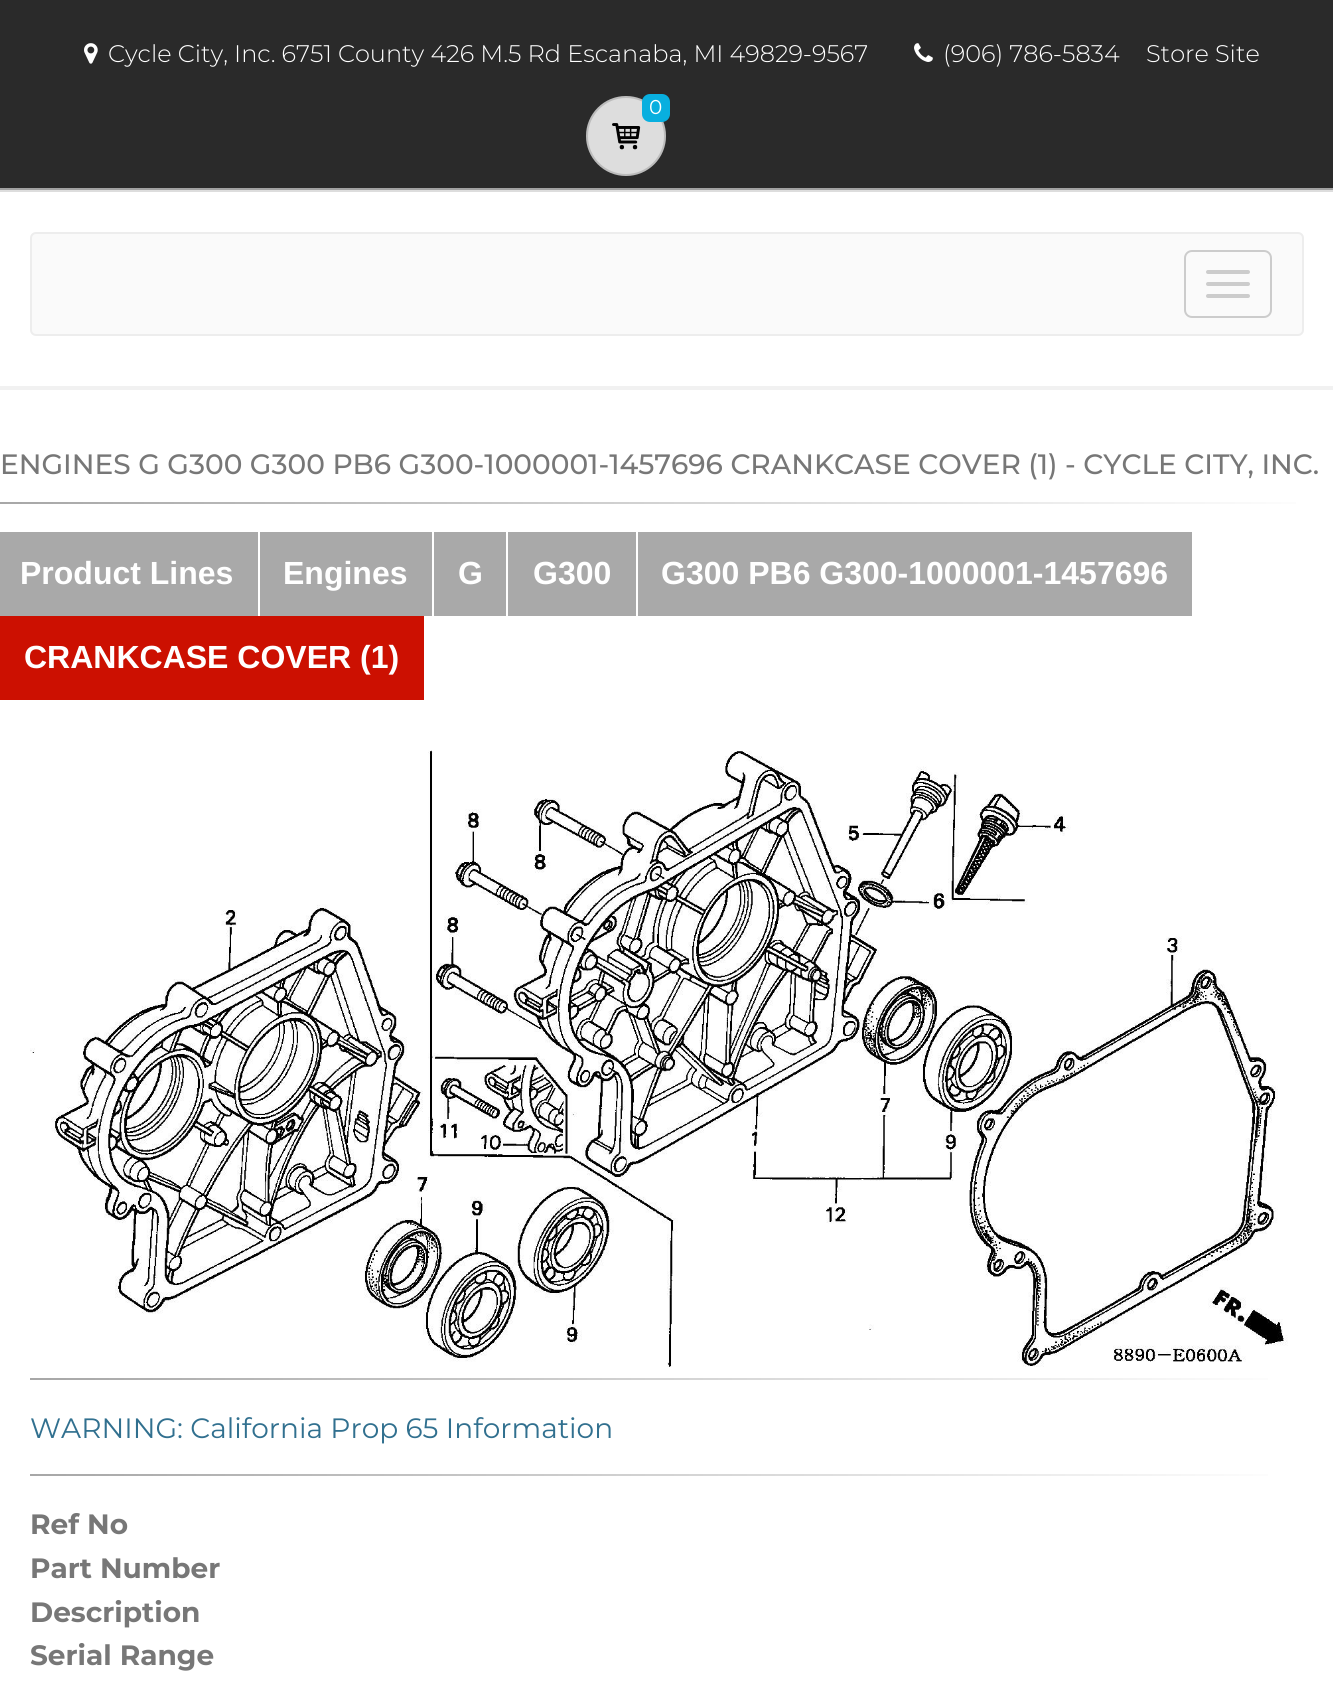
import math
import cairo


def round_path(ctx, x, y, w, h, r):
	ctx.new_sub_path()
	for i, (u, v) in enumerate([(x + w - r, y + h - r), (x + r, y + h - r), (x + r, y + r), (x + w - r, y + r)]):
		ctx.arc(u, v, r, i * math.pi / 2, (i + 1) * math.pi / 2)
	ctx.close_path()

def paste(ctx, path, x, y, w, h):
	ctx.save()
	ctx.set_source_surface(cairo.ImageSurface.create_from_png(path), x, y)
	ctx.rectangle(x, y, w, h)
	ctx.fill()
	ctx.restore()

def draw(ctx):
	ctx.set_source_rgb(1, 1, 1)
	ctx.paint()
	ctx.set_source_rgb(0.165, 0.165, 0.165)
	ctx.rectangle(0, 0, 1333, 188)
	ctx.fill()
	ctx.set_source_rgb(0.631, 0.631, 0.631)
	ctx.rectangle(0, 188, 1333, 2)
	ctx.fill()
	paste(ctx, 'media/1.png', 84, 43, 14, 21)
	ctx.select_font_face('Montserrat Light')
	ctx.set_font_size(24)
	ctx.set_source_rgb(1, 1, 1)
	ctx.move_to(108, 62)
	ctx.show_text('Cycle City, Inc. 6751 County 426 M.5 Rd Escanaba, MI 49829-9567')
	paste(ctx, 'media/2.png', 914, 43, 19, 19)
	ctx.move_to(943, 62)
	ctx.show_text('(906) 786-5834')
	ctx.move_to(1146, 62)
	ctx.show_text('Store Site')
	ctx.set_source_rgb(0.867, 0.867, 0.867)
	ctx.new_path()
	ctx.arc(626, 136, 40, 0, 2 * math.pi)
	ctx.fill()
	ctx.arc(626, 136, 39, 0, 2 * math.pi)
	ctx.set_source_rgba(0, 0, 0, 0.15)
	ctx.stroke()
	ctx.set_source_rgb(0.035, 0.686, 0.875)
	round_path(ctx, 642, 94, 28, 28, 8)
	ctx.fill()
	ctx.select_font_face('Montserrat')
	ctx.set_font_size(20)
	ctx.set_source_rgb(1, 1, 1)
	ctx.move_to(649, 114)
	ctx.show_text('0')
	paste(ctx, 'media/3.png', 612, 123, 29, 27)
	ctx.set_source_rgb(0.867, 0.867, 0.867)
	ctx.rectangle(0, 190, 1333, 2)
	ctx.fill()
	ctx.set_source_rgb(0.945, 0.945, 0.945)
	ctx.rectangle(0, 386, 1333, 4)
	ctx.fill()
	ctx.set_source_rgb(0.98, 0.98, 0.98)
	round_path(ctx, 31, 233, 1272, 102, 5)
	ctx.fill_preserve()
	ctx.set_source_rgb(0.929, 0.929, 0.929)
	ctx.stroke()
	round_path(ctx, 1185, 251, 86, 66, 7)
	ctx.set_source_rgb(0.8, 0.8, 0.8)
	ctx.stroke()
	round_path(ctx, 1206, 270, 44, 4, 2)
	ctx.fill()
	round_path(ctx, 1206, 282, 44, 4, 2)
	ctx.fill()
	round_path(ctx, 1206, 294, 44, 4, 2)
	ctx.fill()
	ctx.select_font_face('Montserrat Medium')
	ctx.set_font_size(28)
	ctx.set_source_rgb(0.467, 0.467, 0.467)
	ctx.move_to(0, 474)
	ctx.show_text('ENGINES G G300 G300 PB6 G300-1000001-1457696 CRANKCASE COVER (1) - CYCLE CITY, INC.')
	gradient = cairo.LinearGradient(0, 503, 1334, 503)
	gradient.add_color_stop_rgba(0, 0.655, 0.655, 0.655, 1)
	gradient.add_color_stop_rgba(1, 1, 1, 1, 1)
	ctx.set_source(gradient)
	ctx.rectangle(0, 502, 1296, 2)
	ctx.fill()
	ctx.set_source_rgb(0.663, 0.663, 0.663)
	ctx.rectangle(0, 532, 258, 84)
	ctx.fill()
	ctx.select_font_face('Liberation Sans', cairo.FONT_SLANT_NORMAL, cairo.FONT_WEIGHT_BOLD)
	ctx.set_font_size(32)
	ctx.set_source_rgb(1, 1, 1)
	ctx.move_to(20, 584)
	ctx.show_text('Product Lines')
	ctx.set_source_rgb(0.663, 0.663, 0.663)
	ctx.rectangle(260, 532, 172, 84)
	ctx.fill()
	ctx.set_source_rgb(1, 1, 1)
	ctx.move_to(283, 584)
	ctx.show_text('Engines')
	ctx.set_source_rgb(0.663, 0.663, 0.663)
	ctx.rectangle(434, 532, 72, 84)
	ctx.fill()
	ctx.set_source_rgb(1, 1, 1)
	ctx.move_to(458, 584)
	ctx.show_text('G')
	ctx.set_source_rgb(0.663, 0.663, 0.663)
	ctx.rectangle(508, 532, 128, 84)
	ctx.fill()
	ctx.set_source_rgb(1, 1, 1)
	ctx.move_to(533, 584)
	ctx.show_text('G300')
	ctx.set_source_rgb(0.663, 0.663, 0.663)
	ctx.rectangle(638, 532, 554, 84)
	ctx.fill()
	ctx.set_source_rgb(1, 1, 1)
	ctx.move_to(661, 584)
	ctx.show_text('G300 PB6 G300-1000001-1457696')
	ctx.set_source_rgb(0.8, 0.063, 0.004)
	ctx.rectangle(0, 616, 424, 84)
	ctx.fill()
	ctx.set_source_rgb(1, 1, 1)
	ctx.move_to(24, 668)
	ctx.show_text('CRANKCASE COVER (1)')
	paste(ctx, 'media/4.png', 30, 750, 1258, 617)
	gradient = cairo.LinearGradient(30, 1379, 1304, 1379)
	gradient.add_color_stop_rgba(0, 0.655, 0.655, 0.655, 1)
	gradient.add_color_stop_rgba(1, 1, 1, 1, 1)
	ctx.set_source(gradient)
	ctx.rectangle(30, 1378, 1238, 2)
	ctx.fill()
	ctx.select_font_face('Montserrat')
	ctx.set_font_size(28)
	ctx.set_source_rgb(0.192, 0.439, 0.561)
	ctx.move_to(30, 1438)
	ctx.show_text('WARNING: California Prop 65 Information')
	gradient = cairo.LinearGradient(30, 1475, 1304, 1475)
	gradient.add_color_stop_rgba(0, 0.655, 0.655, 0.655, 1)
	gradient.add_color_stop_rgba(1, 1, 1, 1, 1)
	ctx.set_source(gradient)
	ctx.rectangle(30, 1474, 1238, 2)
	ctx.fill()
	ctx.select_font_face('Montserrat', cairo.FONT_SLANT_NORMAL, cairo.FONT_WEIGHT_BOLD)
	ctx.set_source_rgb(0.467, 0.467, 0.467)
	for x, y, s in [
		(30, 1534, 'Ref No'),
		(30, 1578, 'Part Number'),
		(30, 1622, 'Description'),
		(30, 1665, 'Serial Range'),
	]:
		ctx.move_to(x, y)
		ctx.show_text(s)


surface = cairo.ImageSurface(cairo.FORMAT_RGB24, 1333, 1701)
ctx = cairo.Context(surface)
options = cairo.FontOptions()
options.set_hint_metrics(cairo.HINT_METRICS_OFF)
options.set_hint_style(cairo.HINT_STYLE_NONE)
ctx.set_font_options(options)
ctx.set_miter_limit(4)
draw(ctx)
surface.write_to_png('image.png')
